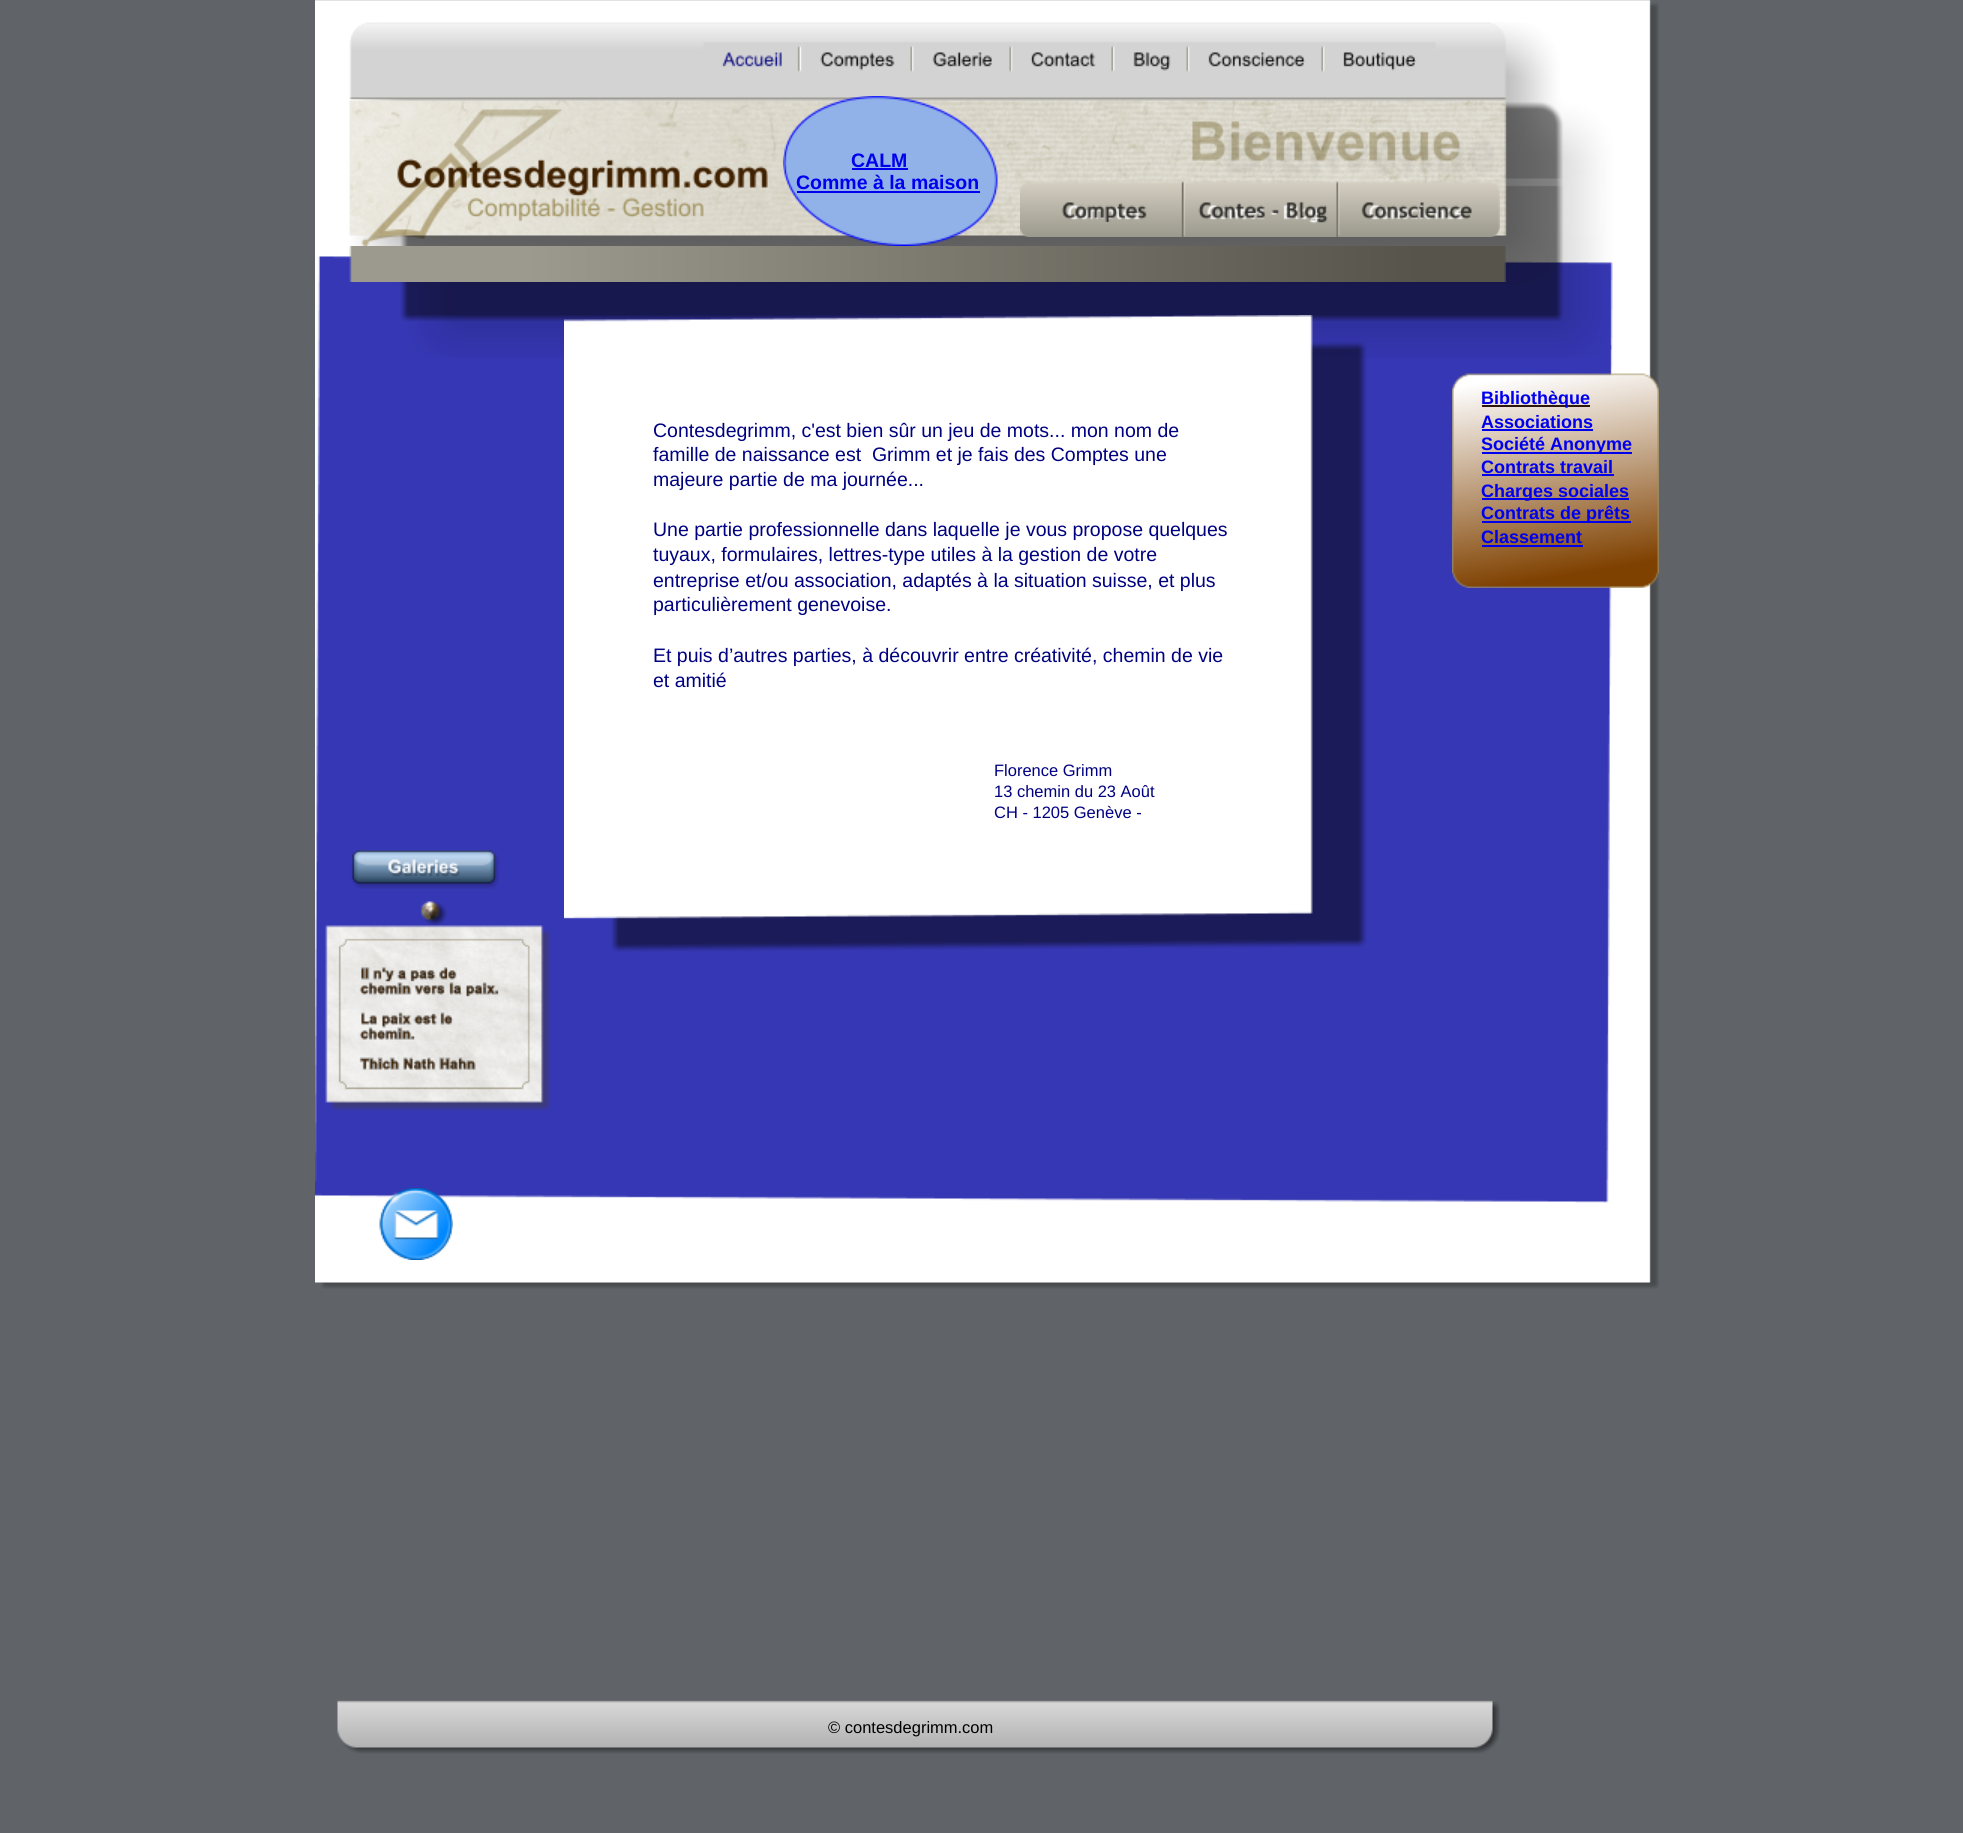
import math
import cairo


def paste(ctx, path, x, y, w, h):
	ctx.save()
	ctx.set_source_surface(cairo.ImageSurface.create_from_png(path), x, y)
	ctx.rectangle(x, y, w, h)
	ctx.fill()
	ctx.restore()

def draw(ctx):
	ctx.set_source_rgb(0.376, 0.392, 0.408)
	ctx.paint()
	paste(ctx, 'media/1.png', 315, 0, 1344, 1289)
	paste(ctx, 'media/18.png', 315, 256, 1298, 947)
	paste(ctx, 'media/2.png', 349, 22, 1264, 336)
	paste(ctx, 'media/3.png', 703, 42, 99, 30)
	paste(ctx, 'media/4.png', 802, 42, 112, 30)
	paste(ctx, 'media/5.png', 913, 42, 100, 30)
	paste(ctx, 'media/6.png', 1011, 42, 104, 30)
	paste(ctx, 'media/7.png', 1114, 42, 76, 30)
	paste(ctx, 'media/8.png', 1189, 42, 136, 30)
	paste(ctx, 'media/9.png', 1324, 42, 112, 29)
	paste(ctx, 'media/10.png', 722, 52, 60, 15)
	paste(ctx, 'media/11.png', 361, 109, 407, 137)
	paste(ctx, 'media/12.png', 783, 96, 215, 150)
	paste(ctx, 'media/13.png', 1192, 121, 303, 55)
	ctx.select_font_face('Liberation Sans', cairo.FONT_SLANT_NORMAL, cairo.FONT_WEIGHT_BOLD)
	ctx.set_font_size(19.5)
	ctx.set_source_rgb(0, 0, 0.933)
	ctx.move_to(851, 167)
	ctx.show_text('CALM')
	ctx.rectangle(852, 168, 56, 2)
	ctx.fill()
	ctx.move_to(796, 189)
	ctx.show_text('Comme à la maison')
	ctx.rectangle(797, 191, 183, 2)
	ctx.fill()
	paste(ctx, 'media/14.png', 1020, 181, 164, 56)
	paste(ctx, 'media/15.png', 1181, 181, 157, 56)
	paste(ctx, 'media/16.png', 1336, 181, 164, 56)
	paste(ctx, 'media/17.png', 349, 246, 1157, 36)
	paste(ctx, 'media/19.png', 564, 315, 803, 637)
	paste(ctx, 'media/20.png', 1452, 373, 207, 215)
	ctx.select_font_face('Liberation Sans')
	ctx.set_source_rgb(0, 0.004, 0.498)
	for x, y, s in [
		(653, 437, 'Contesdegrimm, c\'est bien sûr un jeu de mots... mon nom de'),
		(653, 461, 'famille de naissance est  Grimm et je fais des Comptes une'),
		(653, 486, 'majeure partie de ma journée...'),
		(653, 536, 'Une partie professionnelle dans laquelle je vous propose quelques'),
		(653, 561, 'tuyaux, formulaires, lettres-type utiles à la gestion de votre'),
		(653, 587, 'entreprise et/ou association, adaptés à la situation suisse, et plus'),
		(653, 611, 'particulièrement genevoise.'),
		(653, 662, 'Et puis d’autres parties, à découvrir entre créativité, chemin de vie'),
		(653, 687, 'et amitié'),
	]:
		ctx.move_to(x, y)
		ctx.show_text(s)
	ctx.set_font_size(16.5)
	for x, y, s in [
		(994, 776, 'Florence Grimm'),
		(994, 797, '13 chemin du 23 Août'),
		(994, 818, 'CH - 1205 Genève -'),
	]:
		ctx.move_to(x, y)
		ctx.show_text(s)
	ctx.set_source_rgb(0.184, 0.086, 0.051)
	ctx.rectangle(1482, 405, 108, 2)
	ctx.fill()
	ctx.select_font_face('Liberation Sans', cairo.FONT_SLANT_NORMAL, cairo.FONT_WEIGHT_BOLD)
	ctx.set_font_size(18)
	ctx.set_source_rgb(0, 0, 0.933)
	ctx.move_to(1481, 404)
	ctx.show_text('Bibliothèque')
	ctx.move_to(1481, 428)
	ctx.show_text('Associations')
	ctx.rectangle(1482, 429, 111, 2)
	ctx.fill()
	ctx.rectangle(1482, 452, 150, 2)
	ctx.fill()
	ctx.move_to(1481, 450)
	ctx.show_text('Société Anonyme')
	ctx.move_to(1481, 473)
	ctx.show_text('Contrats travail')
	ctx.rectangle(1482, 474, 132, 2)
	ctx.fill()
	ctx.rectangle(1482, 498, 147, 2)
	ctx.fill()
	ctx.move_to(1481, 497)
	ctx.show_text('Charges sociales')
	ctx.rectangle(1482, 521, 149, 2)
	ctx.fill()
	ctx.move_to(1481, 519)
	ctx.show_text('Contrats de prêts')
	ctx.move_to(1481, 543)
	ctx.show_text('Classement')
	ctx.rectangle(1482, 545, 101, 2)
	ctx.fill()
	paste(ctx, 'media/21.png', 351, 850, 149, 39)
	paste(ctx, 'media/22.png', 325, 901, 226, 210)
	paste(ctx, 'media/23.png', 379, 1188, 74, 72)
	paste(ctx, 'media/24.png', 337, 1700, 1163, 54)
	ctx.select_font_face('Liberation Sans')
	ctx.set_font_size(16.5)
	ctx.set_source_rgb(0, 0, 0)
	ctx.move_to(828, 1733)
	ctx.show_text('© contesdegrimm.com')


surface = cairo.ImageSurface(cairo.FORMAT_RGB24, 1963, 1833)
ctx = cairo.Context(surface)
options = cairo.FontOptions()
options.set_hint_metrics(cairo.HINT_METRICS_OFF)
options.set_hint_style(cairo.HINT_STYLE_NONE)
ctx.set_font_options(options)
ctx.set_miter_limit(4)
draw(ctx)
surface.write_to_png('image.png')
